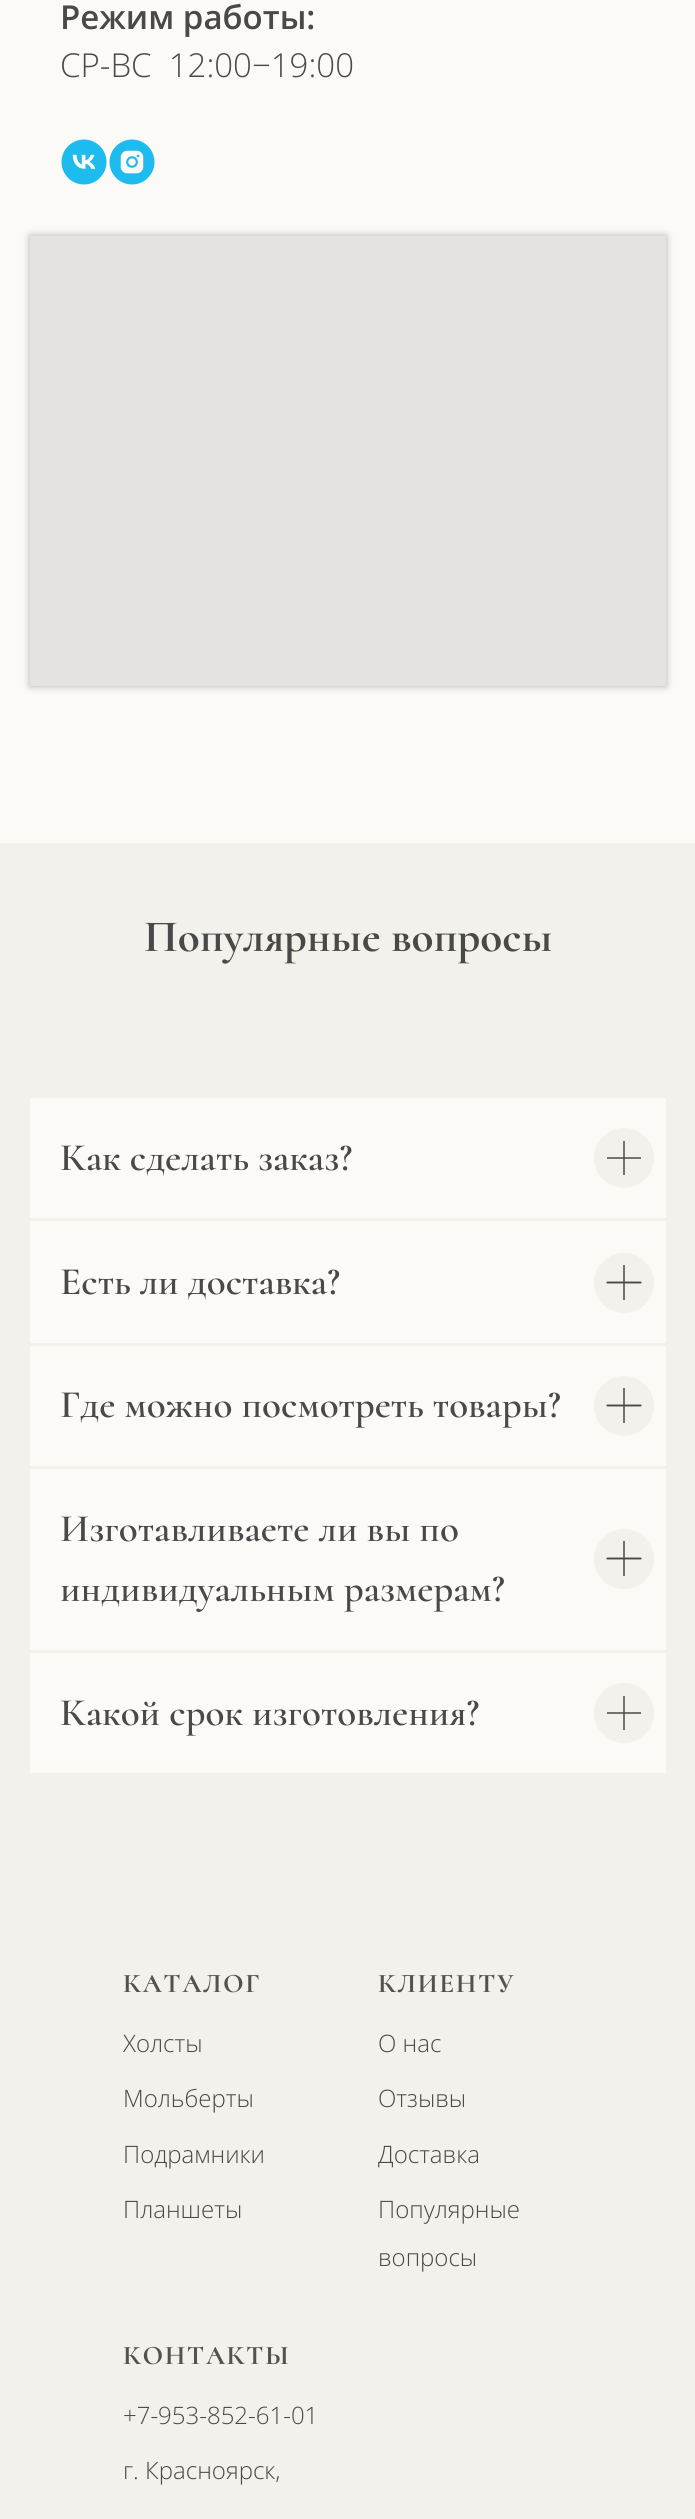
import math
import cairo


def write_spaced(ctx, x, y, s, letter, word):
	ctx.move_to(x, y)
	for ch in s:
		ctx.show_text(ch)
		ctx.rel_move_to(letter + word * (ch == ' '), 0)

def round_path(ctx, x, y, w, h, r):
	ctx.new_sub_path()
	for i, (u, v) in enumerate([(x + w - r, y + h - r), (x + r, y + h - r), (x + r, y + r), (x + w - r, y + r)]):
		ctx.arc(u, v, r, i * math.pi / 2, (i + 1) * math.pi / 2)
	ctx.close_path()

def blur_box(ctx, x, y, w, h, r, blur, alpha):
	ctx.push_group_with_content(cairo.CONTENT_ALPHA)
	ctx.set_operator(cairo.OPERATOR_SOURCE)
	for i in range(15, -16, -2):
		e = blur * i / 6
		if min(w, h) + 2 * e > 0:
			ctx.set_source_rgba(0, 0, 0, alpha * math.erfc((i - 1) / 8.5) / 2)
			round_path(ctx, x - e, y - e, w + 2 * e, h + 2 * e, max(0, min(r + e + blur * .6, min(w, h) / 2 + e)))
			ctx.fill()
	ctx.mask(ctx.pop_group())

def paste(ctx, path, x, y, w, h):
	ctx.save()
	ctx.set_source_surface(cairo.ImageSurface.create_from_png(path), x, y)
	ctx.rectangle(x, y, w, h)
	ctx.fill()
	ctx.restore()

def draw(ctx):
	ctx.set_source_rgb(0.984, 0.98, 0.965)
	ctx.paint()
	ctx.select_font_face('Open Sans SemiBold')
	ctx.set_font_size(33)
	ctx.set_source_rgb(0.286, 0.286, 0.286)
	ctx.move_to(60, 29)
	ctx.show_text('Режим работы:')
	ctx.select_font_face('Open Sans Light')
	ctx.move_to(60, 77)
	ctx.show_text('CР-ВС  12:00−19:00')
	paste(ctx, 'media/1.png', 61, 139, 46, 46)
	paste(ctx, 'media/2.png', 109, 139, 46, 46)
	ctx.set_source_rgb(0, 0, 0)
	blur_box(ctx, 30, 236, 636, 450, 0, 4, 0.3)
	ctx.set_source_rgb(0.898, 0.89, 0.875)
	ctx.rectangle(30, 236, 636, 450)
	ctx.fill()
	ctx.set_source_rgb(0.949, 0.945, 0.922)
	ctx.rectangle(0, 843, 695, 1676)
	ctx.fill()
	ctx.select_font_face('Cormorant', cairo.FONT_SLANT_NORMAL, cairo.FONT_WEIGHT_BOLD)
	ctx.set_font_size(45)
	ctx.set_source_rgb(0.286, 0.286, 0.286)
	ctx.move_to(144, 951)
	ctx.show_text('Популярные вопросы')
	ctx.set_source_rgb(0.984, 0.98, 0.965)
	ctx.rectangle(30, 1098, 636, 120)
	ctx.fill()
	ctx.select_font_face('Cormorant SemiBold')
	ctx.set_font_size(39)
	ctx.set_source_rgb(0.286, 0.286, 0.286)
	ctx.move_to(60, 1170)
	ctx.show_text('Как сделать заказ?')
	ctx.set_source_rgb(0.949, 0.945, 0.922)
	ctx.new_path()
	ctx.arc(624, 1158, 30, 0, 2 * math.pi)
	ctx.fill()
	ctx.set_source_rgb(0.451, 0.451, 0.447)
	ctx.rectangle(623, 1141, 2, 34)
	ctx.rectangle(607, 1157, 34, 2)
	ctx.fill()
	ctx.set_source_rgb(0.329, 0.329, 0.325)
	ctx.rectangle(623, 1157, 2, 2)
	ctx.fill()
	ctx.set_source_rgb(0.984, 0.98, 0.965)
	ctx.rectangle(30, 1221, 636, 122)
	ctx.fill()
	ctx.set_source_rgb(0.286, 0.286, 0.286)
	ctx.move_to(60, 1294)
	ctx.show_text('Есть ли доставка?')
	ctx.set_source_rgb(0.949, 0.945, 0.922)
	ctx.new_path()
	ctx.arc(624, 1283, 30, 0, 2 * math.pi)
	ctx.fill()
	ctx.new_path()
	ctx.move_to(607.5, 1282.5)
	ctx.line_to(640.5, 1282.5)
	ctx.set_source_rgb(0.286, 0.286, 0.286)
	ctx.set_line_width(1.5)
	ctx.set_line_cap(cairo.LINE_CAP_SQUARE)
	ctx.stroke()
	ctx.set_source_rgba(0.286, 0.286, 0.286, 0.75)
	ctx.rectangle(623, 1265, 2, 35)
	ctx.fill()
	ctx.new_path()
	ctx.move_to(607.5, 1282.5)
	ctx.line_to(640.5, 1282.5)
	ctx.set_source_rgb(0.286, 0.286, 0.286)
	ctx.stroke()
	ctx.set_source_rgb(0.984, 0.98, 0.965)
	ctx.rectangle(30, 1346, 636, 120)
	ctx.fill()
	ctx.set_source_rgb(0.286, 0.286, 0.286)
	ctx.move_to(60, 1417)
	ctx.show_text('Где можно посмотреть товары?')
	ctx.set_source_rgb(0.949, 0.945, 0.922)
	ctx.new_path()
	ctx.arc(624, 1406, 30, 0, 2 * math.pi)
	ctx.fill()
	ctx.new_path()
	ctx.move_to(607.5, 1405.5)
	ctx.line_to(640.5, 1405.5)
	ctx.set_source_rgb(0.286, 0.286, 0.286)
	ctx.stroke()
	ctx.set_source_rgba(0.286, 0.286, 0.286, 0.75)
	ctx.rectangle(623, 1388, 2, 35)
	ctx.fill()
	ctx.new_path()
	ctx.move_to(607.5, 1405.5)
	ctx.line_to(640.5, 1405.5)
	ctx.set_source_rgb(0.286, 0.286, 0.286)
	ctx.stroke()
	ctx.set_source_rgb(0.984, 0.98, 0.965)
	ctx.rectangle(30, 1469, 636, 181)
	ctx.fill()
	ctx.set_source_rgb(0.286, 0.286, 0.286)
	ctx.move_to(60, 1541)
	ctx.show_text('Изготавливаете ли вы по')
	ctx.move_to(60, 1601)
	ctx.show_text('индивидуальным размерам?')
	ctx.set_source_rgb(0.949, 0.945, 0.922)
	ctx.new_path()
	ctx.arc(624, 1559, 30, 0, 2 * math.pi)
	ctx.fill()
	ctx.new_path()
	ctx.move_to(607.5, 1558.5)
	ctx.line_to(640.5, 1558.5)
	ctx.set_source_rgb(0.286, 0.286, 0.286)
	ctx.stroke()
	ctx.set_source_rgba(0.286, 0.286, 0.286, 0.75)
	ctx.rectangle(623, 1541, 2, 35)
	ctx.fill()
	ctx.new_path()
	ctx.move_to(607.5, 1558.5)
	ctx.line_to(640.5, 1558.5)
	ctx.set_source_rgb(0.286, 0.286, 0.286)
	ctx.stroke()
	ctx.set_source_rgb(0.984, 0.98, 0.965)
	ctx.rectangle(30, 1653, 636, 120)
	ctx.fill()
	ctx.set_source_rgb(0.286, 0.286, 0.286)
	ctx.move_to(60, 1725)
	ctx.show_text('Какой срок изготовления?')
	ctx.set_source_rgb(0.949, 0.945, 0.922)
	ctx.new_path()
	ctx.arc(624, 1713, 30, 0, 2 * math.pi)
	ctx.fill()
	ctx.set_source_rgb(0.451, 0.451, 0.447)
	ctx.rectangle(623, 1696, 2, 34)
	ctx.rectangle(607, 1712, 34, 2)
	ctx.fill()
	ctx.set_source_rgb(0.329, 0.329, 0.325)
	ctx.rectangle(623, 1712, 2, 2)
	ctx.fill()
	ctx.select_font_face('Cormorant', cairo.FONT_SLANT_NORMAL, cairo.FONT_WEIGHT_BOLD)
	ctx.set_font_size(27)
	ctx.set_source_rgb(0.322, 0.322, 0.322)
	write_spaced(ctx, 123, 1992, 'КАТАЛОГ', 1.5, 0)
	write_spaced(ctx, 378, 1992, 'КЛИЕНТУ', 1.5, 0)
	ctx.select_font_face('Open Sans Light')
	ctx.set_font_size(24)
	ctx.set_source_rgb(0.286, 0.286, 0.286)
	for x, y, s in [
		(123, 2052, 'Холсты'),
		(378, 2052, 'О нас'),
		(123, 2107, 'Мольберты'),
		(378, 2107, 'Отзывы'),
		(123, 2163, 'Подрамники'),
		(378, 2163, 'Доставка'),
		(123, 2218, 'Планшеты'),
		(378, 2218, 'Популярные'),
		(378, 2266, 'вопросы'),
	]:
		ctx.move_to(x, y)
		ctx.show_text(s)
	ctx.select_font_face('Cormorant', cairo.FONT_SLANT_NORMAL, cairo.FONT_WEIGHT_BOLD)
	ctx.set_font_size(27)
	ctx.set_source_rgb(0.322, 0.322, 0.322)
	write_spaced(ctx, 123, 2364, 'КОНТАКТЫ', 1.5, 0)
	ctx.select_font_face('Open Sans Light')
	ctx.set_font_size(24)
	ctx.set_source_rgb(0.286, 0.286, 0.286)
	ctx.move_to(123, 2424)
	ctx.show_text('+7-953-852-61-01')
	ctx.move_to(123, 2479)
	ctx.show_text('г. Красноярск,')


surface = cairo.ImageSurface(cairo.FORMAT_RGB24, 695, 2519)
ctx = cairo.Context(surface)
options = cairo.FontOptions()
options.set_hint_metrics(cairo.HINT_METRICS_OFF)
options.set_hint_style(cairo.HINT_STYLE_NONE)
ctx.set_font_options(options)
ctx.set_miter_limit(4)
draw(ctx)
surface.write_to_png('image.png')
